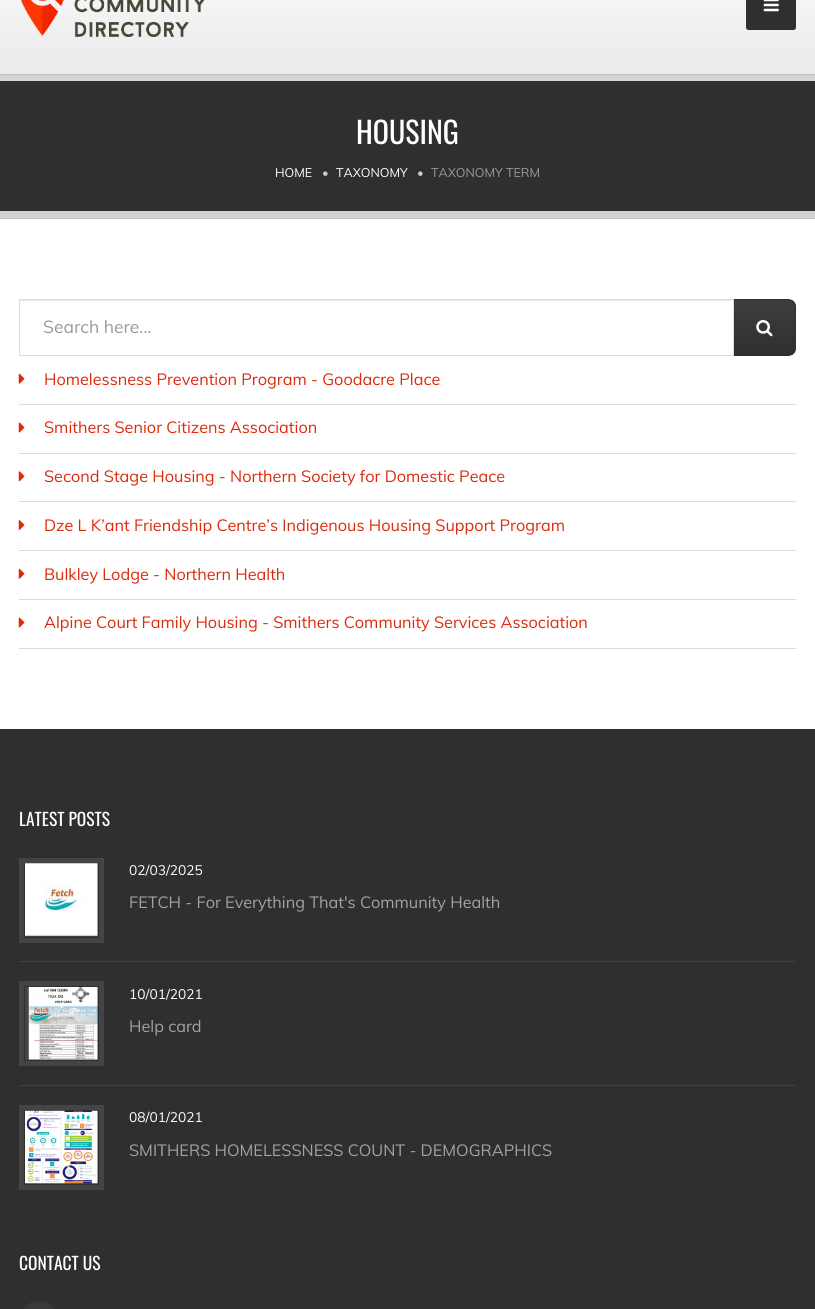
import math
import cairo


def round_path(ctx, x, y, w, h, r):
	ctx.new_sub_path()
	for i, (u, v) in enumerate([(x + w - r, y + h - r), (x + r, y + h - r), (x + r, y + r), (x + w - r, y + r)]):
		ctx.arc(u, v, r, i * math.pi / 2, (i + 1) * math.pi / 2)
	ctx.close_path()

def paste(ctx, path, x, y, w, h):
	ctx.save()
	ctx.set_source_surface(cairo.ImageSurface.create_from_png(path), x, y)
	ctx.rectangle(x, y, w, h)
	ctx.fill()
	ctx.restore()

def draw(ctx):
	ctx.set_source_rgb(1, 1, 1)
	ctx.paint()
	ctx.set_source_rgb(0.925, 0.925, 0.925)
	ctx.rectangle(0, 58, 815, 16)
	ctx.fill()
	gradient = cairo.LinearGradient(408, -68, 408, 58)
	gradient.add_color_stop_rgba(0, 1, 1, 1, 1)
	gradient.add_color_stop_rgba(1, 0.925, 0.925, 0.925, 1)
	ctx.set_source(gradient)
	ctx.rectangle(0, 0, 815, 58)
	ctx.fill()
	paste(ctx, 'media/1.png', 21, 0, 184, 37)
	ctx.set_source_rgb(0.184, 0.184, 0.184)
	round_path(ctx, 746, -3, 50, 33, 2.5)
	ctx.fill()
	paste(ctx, 'media/2.png', 763, 0, 16, 12)
	ctx.rectangle(0, 81, 815, 130)
	ctx.fill()
	ctx.set_source_rgb(0.831, 0.831, 0.831)
	ctx.rectangle(0, 75, 815, 6)
	ctx.rectangle(0, 211, 815, 7)
	ctx.fill()
	ctx.set_source_rgb(0.749, 0.749, 0.749)
	ctx.rectangle(0, 74, 815, 1)
	ctx.fill()
	ctx.select_font_face('Oswald')
	ctx.set_font_size(30)
	ctx.set_source_rgb(1, 1, 1)
	ctx.move_to(356, 144)
	ctx.show_text('HOUSING')
	ctx.select_font_face('Muli')
	ctx.set_font_size(12.5)
	ctx.move_to(275, 177)
	ctx.show_text('HOME')
	ctx.set_source_rgb(0.8, 0.8, 0.8)
	ctx.move_to(322, 177)
	ctx.show_text('•')
	ctx.set_source_rgb(1, 1, 1)
	ctx.move_to(336, 177)
	ctx.show_text('TAXONOMY')
	ctx.set_source_rgb(0.8, 0.8, 0.8)
	ctx.move_to(417, 177)
	ctx.show_text('•')
	ctx.set_source_rgb(0.6, 0.6, 0.6)
	ctx.move_to(431, 177)
	ctx.show_text('TAXONOMY TERM')
	ctx.set_source_rgb(0.749, 0.749, 0.749)
	ctx.rectangle(0, 218, 815, 1)
	ctx.fill()
	ctx.set_source_rgb(0.925, 0.925, 0.925)
	ctx.rectangle(20, 300, 713, 1)
	ctx.fill()
	ctx.save()
	ctx.new_path()
	ctx.move_to(733, 299)
	ctx.line_to(788, 299)
	ctx.curve_to(792.5, 299, 796, 302.5, 796, 307)
	ctx.line_to(796, 348)
	ctx.curve_to(796, 352.5, 792.5, 356, 788, 356)
	ctx.line_to(733, 356)
	ctx.close_path()
	ctx.clip()
	gradient = cairo.LinearGradient(764, 300, 764, 355)
	gradient.add_color_stop_rgba(0, 0.239, 0.239, 0.239, 1)
	gradient.add_color_stop_rgba(1, 0.184, 0.184, 0.184, 1)
	ctx.set_source(gradient)
	ctx.rectangle(734, 300, 62, 55)
	ctx.fill()
	ctx.restore()
	ctx.new_path()
	ctx.move_to(733.5, 299.5)
	ctx.line_to(788, 299.5)
	ctx.curve_to(792, 299.5, 795.5, 303, 795.5, 307)
	ctx.line_to(795.5, 348)
	ctx.curve_to(795.5, 352, 792, 355.5, 788, 355.5)
	ctx.line_to(733.5, 355.5)
	ctx.close_path()
	ctx.set_source_rgb(0.184, 0.184, 0.184)
	ctx.set_line_width(1)
	ctx.stroke()
	ctx.rectangle(19.5, 299.5, 714, 56)
	ctx.set_source_rgb(0.863, 0.863, 0.863)
	ctx.stroke()
	ctx.set_font_size(17.5)
	ctx.set_source_rgb(0.6, 0.6, 0.6)
	ctx.move_to(43, 333)
	ctx.show_text('Search here...')
	paste(ctx, 'media/3.png', 756, 320, 17, 17)
	ctx.set_source_rgb(0.863, 0.863, 0.863)
	ctx.rectangle(19, 404, 777, 1)
	ctx.fill()
	paste(ctx, 'media/4.png', 18, 373, 7, 11)
	ctx.set_font_size(16.25)
	ctx.set_source_rgb(0.863, 0.165, 0.043)
	ctx.move_to(44, 385)
	ctx.show_text('Homelessness Prevention Program - Goodacre Place')
	ctx.set_source_rgb(0.863, 0.863, 0.863)
	ctx.rectangle(19, 453, 777, 1)
	ctx.fill()
	paste(ctx, 'media/5.png', 18, 422, 7, 11)
	ctx.set_source_rgb(0.863, 0.165, 0.043)
	ctx.move_to(44, 433)
	ctx.show_text('Smithers Senior Citizens Association')
	ctx.set_source_rgb(0.863, 0.863, 0.863)
	ctx.rectangle(19, 501, 777, 1)
	ctx.fill()
	paste(ctx, 'media/6.png', 18, 471, 7, 11)
	ctx.set_source_rgb(0.863, 0.165, 0.043)
	ctx.move_to(44, 482)
	ctx.show_text('Second Stage Housing - Northern Society for Domestic Peace')
	ctx.set_source_rgb(0.863, 0.863, 0.863)
	ctx.rectangle(19, 550, 777, 1)
	ctx.fill()
	paste(ctx, 'media/7.png', 18, 520, 7, 10)
	ctx.set_source_rgb(0.863, 0.165, 0.043)
	ctx.move_to(44, 531)
	ctx.show_text('Dze L K’ant Friendship Centre’s Indigenous Housing Support Program')
	ctx.set_source_rgb(0.863, 0.863, 0.863)
	ctx.rectangle(19, 599, 777, 1)
	ctx.fill()
	paste(ctx, 'media/4.png', 18, 568, 7, 11)
	ctx.set_source_rgb(0.863, 0.165, 0.043)
	ctx.move_to(44, 580)
	ctx.show_text('Bulkley Lodge - Northern Health')
	ctx.set_source_rgb(0.863, 0.863, 0.863)
	ctx.rectangle(19, 648, 777, 1)
	ctx.fill()
	paste(ctx, 'media/5.png', 18, 617, 7, 11)
	ctx.set_source_rgb(0.863, 0.165, 0.043)
	ctx.move_to(44, 628)
	ctx.show_text('Alpine Court Family Housing - Smithers Community Services Association')
	ctx.set_source_rgb(0.184, 0.184, 0.184)
	ctx.rectangle(0, 729, 815, 580)
	ctx.fill()
	ctx.select_font_face('Oswald')
	ctx.set_font_size(17.5)
	ctx.set_source_rgb(1, 1, 1)
	ctx.move_to(19, 826)
	ctx.show_text('LATEST POSTS')
	ctx.set_source_rgb(0.267, 0.267, 0.267)
	ctx.rectangle(19, 858, 85, 85)
	ctx.fill()
	ctx.rectangle(24.5, 863.5, 74, 74)
	ctx.set_source_rgb(0.184, 0.184, 0.184)
	ctx.stroke()
	paste(ctx, 'media/8.png', 25, 863, 73, 73)
	ctx.select_font_face('Muli')
	ctx.set_font_size(13.75)
	ctx.set_source_rgb(1, 1, 1)
	ctx.move_to(129, 875)
	ctx.show_text('02/03/2025')
	ctx.set_font_size(16.25)
	ctx.set_source_rgb(0.639, 0.639, 0.639)
	ctx.move_to(129, 908)
	ctx.show_text('FETCH - For Everything That\'s Community Health')
	ctx.set_source_rgb(0.251, 0.251, 0.251)
	ctx.rectangle(19, 961, 777, 1)
	ctx.fill()
	ctx.set_source_rgb(0.267, 0.267, 0.267)
	ctx.rectangle(19, 981, 85, 85)
	ctx.fill()
	ctx.rectangle(24.5, 986.5, 74, 74)
	ctx.set_source_rgb(0.184, 0.184, 0.184)
	ctx.stroke()
	paste(ctx, 'media/9.png', 28, 987, 70, 73)
	ctx.set_font_size(13.75)
	ctx.set_source_rgb(1, 1, 1)
	ctx.move_to(129, 999)
	ctx.show_text('10/01/2021')
	ctx.set_font_size(16.25)
	ctx.set_source_rgb(0.639, 0.639, 0.639)
	ctx.move_to(129, 1032)
	ctx.show_text('Help card')
	ctx.set_source_rgb(0.251, 0.251, 0.251)
	ctx.rectangle(19, 1085, 777, 1)
	ctx.fill()
	ctx.set_source_rgb(0.267, 0.267, 0.267)
	ctx.rectangle(19, 1105, 85, 85)
	ctx.fill()
	ctx.rectangle(24.5, 1110.5, 74, 74)
	ctx.set_source_rgb(0.184, 0.184, 0.184)
	ctx.stroke()
	paste(ctx, 'media/10.png', 25, 1110, 73, 74)
	ctx.set_font_size(13.75)
	ctx.set_source_rgb(1, 1, 1)
	ctx.move_to(129, 1122)
	ctx.show_text('08/01/2021')
	ctx.set_font_size(16.25)
	ctx.set_source_rgb(0.639, 0.639, 0.639)
	ctx.move_to(129, 1156)
	ctx.show_text('SMITHERS HOMELESSNESS COUNT - DEMOGRAPHICS')
	ctx.select_font_face('Oswald')
	ctx.set_font_size(17.5)
	ctx.set_source_rgb(1, 1, 1)
	ctx.move_to(19, 1270)
	ctx.show_text('CONTACT US')
	ctx.set_source_rgb(0.224, 0.224, 0.224)
	round_path(ctx, 19, 1301, 40, 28, 20)
	ctx.fill()


surface = cairo.ImageSurface(cairo.FORMAT_RGB24, 815, 1309)
ctx = cairo.Context(surface)
options = cairo.FontOptions()
options.set_hint_metrics(cairo.HINT_METRICS_OFF)
options.set_hint_style(cairo.HINT_STYLE_NONE)
ctx.set_font_options(options)
ctx.set_miter_limit(4)
draw(ctx)
surface.write_to_png('image.png')
